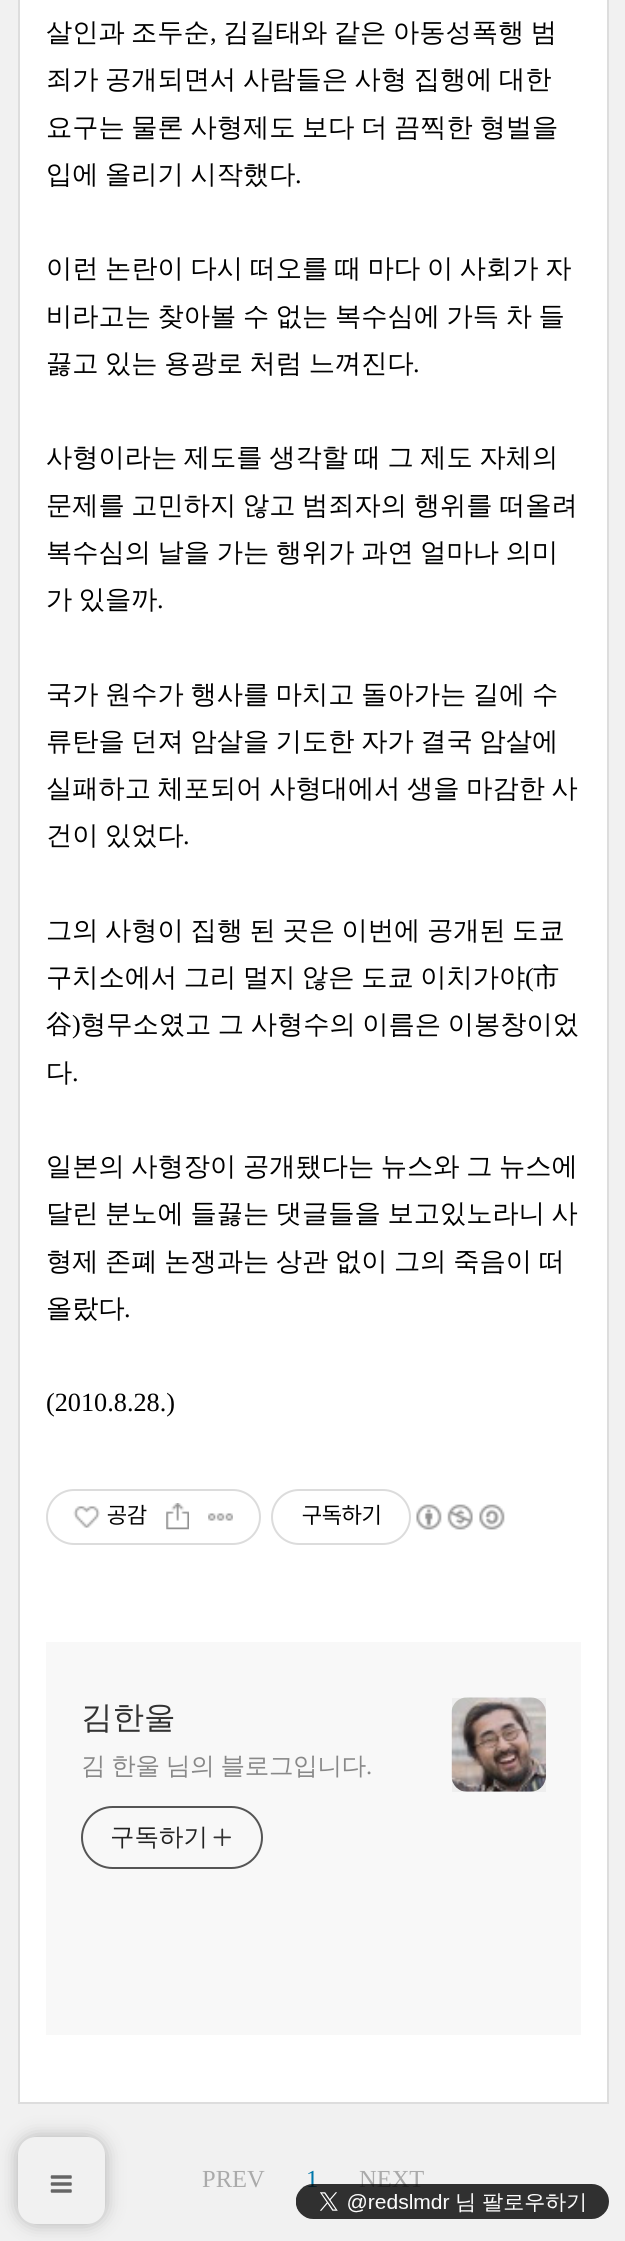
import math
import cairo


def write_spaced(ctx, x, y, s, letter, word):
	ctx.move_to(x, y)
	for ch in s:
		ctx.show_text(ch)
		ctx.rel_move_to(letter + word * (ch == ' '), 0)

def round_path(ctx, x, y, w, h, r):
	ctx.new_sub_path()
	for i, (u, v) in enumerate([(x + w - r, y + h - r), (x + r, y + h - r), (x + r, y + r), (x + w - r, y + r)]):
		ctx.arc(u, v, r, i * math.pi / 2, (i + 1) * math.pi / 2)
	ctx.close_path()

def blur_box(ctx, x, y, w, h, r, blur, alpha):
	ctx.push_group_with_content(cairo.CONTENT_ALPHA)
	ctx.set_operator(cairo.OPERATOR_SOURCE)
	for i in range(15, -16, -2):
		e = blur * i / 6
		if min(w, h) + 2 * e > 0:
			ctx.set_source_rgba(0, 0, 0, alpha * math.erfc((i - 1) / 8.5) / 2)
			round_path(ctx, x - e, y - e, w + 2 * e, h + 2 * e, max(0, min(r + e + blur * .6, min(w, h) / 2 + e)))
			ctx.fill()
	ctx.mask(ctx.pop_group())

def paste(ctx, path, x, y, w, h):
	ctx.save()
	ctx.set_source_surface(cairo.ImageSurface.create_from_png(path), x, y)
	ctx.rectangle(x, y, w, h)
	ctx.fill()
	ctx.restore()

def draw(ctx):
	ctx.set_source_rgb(0.945, 0.945, 0.945)
	ctx.paint()
	ctx.set_source_rgb(1, 1, 1)
	ctx.rectangle(19, -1, 589, 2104)
	ctx.fill_preserve()
	ctx.set_source_rgb(0.867, 0.867, 0.867)
	ctx.stroke()
	ctx.select_font_face('WenQuanYi Zen Hei Medium')
	ctx.set_font_size(26.25)
	ctx.set_source_rgb(0, 0, 0)
	ctx.move_to(46, 41)
	ctx.show_text('살인과')
	ctx.move_to(131, 41)
	ctx.show_text('조두순')
	ctx.select_font_face('Liberation Serif')
	ctx.move_to(210, 41)
	ctx.show_text(',')
	ctx.select_font_face('WenQuanYi Zen Hei Medium')
	ctx.move_to(223, 41)
	ctx.show_text('김길태')
	for x, y, s in [
		(301, 41, '와 같은 아동성폭행 범'),
		(46, 88, '죄가 공개되면서 사람들은 사형 집행에 대한'),
		(46, 136, '요구는 물론 사형제도 보다 더 끔찍한 형벌을'),
		(46, 183, '입에 올리기 시작했다'),
	]:
		write_spaced(ctx, x, y, s, 0, -1.25)
	ctx.select_font_face('Liberation Serif')
	ctx.move_to(295, 183)
	ctx.show_text('.')
	ctx.select_font_face('WenQuanYi Zen Hei Medium')
	for x, y, s in [
		(46, 277, '이런 논란이 다시 떠오를 때 마다 이 사회가 자'),
		(46, 325, '비라고는 찾아볼 수 없는 복수심에 가득 차 들'),
		(46, 372, '끓고 있는 용광로 처럼 느껴진다'),
	]:
		write_spaced(ctx, x, y, s, 0, -1.25)
	ctx.select_font_face('Liberation Serif')
	ctx.move_to(413, 372)
	ctx.show_text('.')
	ctx.select_font_face('WenQuanYi Zen Hei Medium')
	for x, y, s in [
		(46, 466, '사형이라는 제도를 생각할 때 그 제도 자체의'),
		(46, 514, '문제를 고민하지 않고 범죄자의 행위를 떠올려'),
		(46, 561, '복수심의 날을 가는 행위가 과연 얼마나 의미'),
		(46, 608, '가 있을까'),
	]:
		write_spaced(ctx, x, y, s, 0, -1.25)
	ctx.select_font_face('Liberation Serif')
	ctx.move_to(157, 608)
	ctx.show_text('.')
	ctx.select_font_face('WenQuanYi Zen Hei Medium')
	for x, y, s in [
		(46, 703, '국가 원수가 행사를 마치고 돌아가는 길에 수'),
		(46, 750, '류탄을 던져 암살을 기도한 자가 결국 암살에'),
		(46, 797, '실패하고 체포되어 사형대에서 생을 마감한 사'),
		(46, 844, '건이 있었다'),
	]:
		write_spaced(ctx, x, y, s, 0, -1.25)
	ctx.select_font_face('Liberation Serif')
	ctx.move_to(183, 844)
	ctx.show_text('.')
	ctx.select_font_face('WenQuanYi Zen Hei Medium')
	write_spaced(ctx, 46, 939, '그의 사형이 집행 된 곳은 이번에 공개된 도쿄', 0, -1.25)
	write_spaced(ctx, 46, 986, '구치소에서 그리 멀지 않은 도쿄 이치가야', 0, -1.25)
	ctx.select_font_face('Liberation Serif')
	ctx.move_to(525, 986)
	ctx.show_text('(')
	ctx.select_font_face('WenQuanYi Zen Hei Medium')
	ctx.move_to(533, 986)
	ctx.show_text('市')
	ctx.move_to(46, 1033)
	ctx.show_text('谷')
	ctx.select_font_face('Liberation Serif')
	ctx.move_to(72, 1033)
	ctx.show_text(')')
	ctx.select_font_face('WenQuanYi Zen Hei Medium')
	write_spaced(ctx, 80, 1033, '형무소였고 그 사형수의 이름은 이봉창이었', 0, -1.25)
	ctx.move_to(46, 1081)
	ctx.show_text('다')
	ctx.select_font_face('Liberation Serif')
	ctx.move_to(72, 1081)
	ctx.show_text('.')
	ctx.select_font_face('WenQuanYi Zen Hei Medium')
	for x, y, s in [
		(46, 1175, '일본의 사형장이 공개됐다는 뉴스와 그 뉴스에'),
		(46, 1222, '달린 분노에 들끓는 댓글들을 보고있노라니 사'),
		(46, 1270, '형제 존폐 논쟁과는 상관 없이 그의 죽음이 떠'),
	]:
		write_spaced(ctx, x, y, s, 0, -1.25)
	ctx.move_to(46, 1317)
	ctx.show_text('올랐다')
	ctx.select_font_face('Liberation Serif')
	ctx.move_to(124, 1317)
	ctx.show_text('.')
	ctx.move_to(46, 1411)
	ctx.show_text('(2010.8.28.)')
	round_path(ctx, 47, 1490, 213, 54, 27)
	ctx.set_source_rgb(0.863, 0.863, 0.863)
	ctx.stroke()
	paste(ctx, 'media/1.png', 73, 1506, 27, 22)
	ctx.select_font_face('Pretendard')
	ctx.set_font_size(23)
	ctx.set_source_rgb(0, 0, 0)
	ctx.move_to(107, 1523)
	ctx.show_text('공감')
	paste(ctx, 'media/2.png', 166, 1503, 23, 27)
	paste(ctx, 'media/3.png', 208, 1513, 25, 8)
	round_path(ctx, 272, 1490, 138, 54, 27)
	ctx.set_source_rgb(0.863, 0.863, 0.863)
	ctx.stroke()
	ctx.set_source_rgb(0, 0, 0)
	ctx.move_to(302, 1523)
	ctx.show_text('구독하기')
	paste(ctx, 'media/4.png', 416, 1504, 26, 26)
	paste(ctx, 'media/5.png', 447, 1504, 26, 26)
	paste(ctx, 'media/6.png', 479, 1504, 26, 26)
	ctx.set_source_rgb(0.969, 0.969, 0.969)
	ctx.rectangle(46, 1642, 535, 393)
	ctx.fill()
	ctx.select_font_face('WenQuanYi Zen Hei Medium')
	ctx.set_font_size(31.5)
	ctx.set_source_rgb(0.2, 0.2, 0.2)
	ctx.move_to(81, 1728)
	ctx.show_text('김한울')
	ctx.set_font_size(24.5)
	ctx.set_source_rgb(0.533, 0.533, 0.533)
	write_spaced(ctx, 81, 1774, '김 한울 님의 블로그입니다', -0.25, -1)
	ctx.select_font_face('Liberation Serif')
	write_spaced(ctx, 366, 1774, '.', -0.25, 0)
	round_path(ctx, 82, 1807, 180, 61, 30.5)
	ctx.set_source_rgb(0.333, 0.333, 0.333)
	ctx.stroke()
	ctx.select_font_face('WenQuanYi Zen Hei Medium')
	ctx.set_source_rgb(0.133, 0.133, 0.133)
	ctx.move_to(110, 1845)
	ctx.show_text('구독하기')
	paste(ctx, 'media/7.png', 213, 1828, 18, 18)
	paste(ctx, 'media/8.png', 451, 1697, 95, 95)
	ctx.set_source_rgba(0, 0, 0, 0.04)
	ctx.rectangle(452, 1698, 94, 94)
	ctx.fill()
	ctx.select_font_face('Liberation Serif')
	ctx.set_source_rgb(0.667, 0.667, 0.667)
	ctx.move_to(202, 2187)
	ctx.show_text('PREV')
	ctx.set_source_rgb(0, 0.467, 0.667)
	ctx.move_to(306, 2187)
	ctx.show_text('1')
	ctx.set_source_rgb(0.667, 0.667, 0.667)
	ctx.move_to(359, 2187)
	ctx.show_text('NEXT')
	paste(ctx, 'media/9.png', 296, 2184, 313, 35)
	ctx.set_source_rgb(0.694, 0.694, 0.694)
	blur_box(ctx, 18, 2137, 87, 87, 18, 9, 1)
	ctx.set_source_rgb(0.945, 0.945, 0.945)
	round_path(ctx, 18, 2137, 87, 87, 18)
	ctx.fill()
	paste(ctx, 'media/10.png', 50, 2175, 22, 18)


surface = cairo.ImageSurface(cairo.FORMAT_RGB24, 625, 2241)
ctx = cairo.Context(surface)
options = cairo.FontOptions()
options.set_hint_metrics(cairo.HINT_METRICS_OFF)
options.set_hint_style(cairo.HINT_STYLE_NONE)
ctx.set_font_options(options)
ctx.set_miter_limit(4)
draw(ctx)
surface.write_to_png('image.png')
